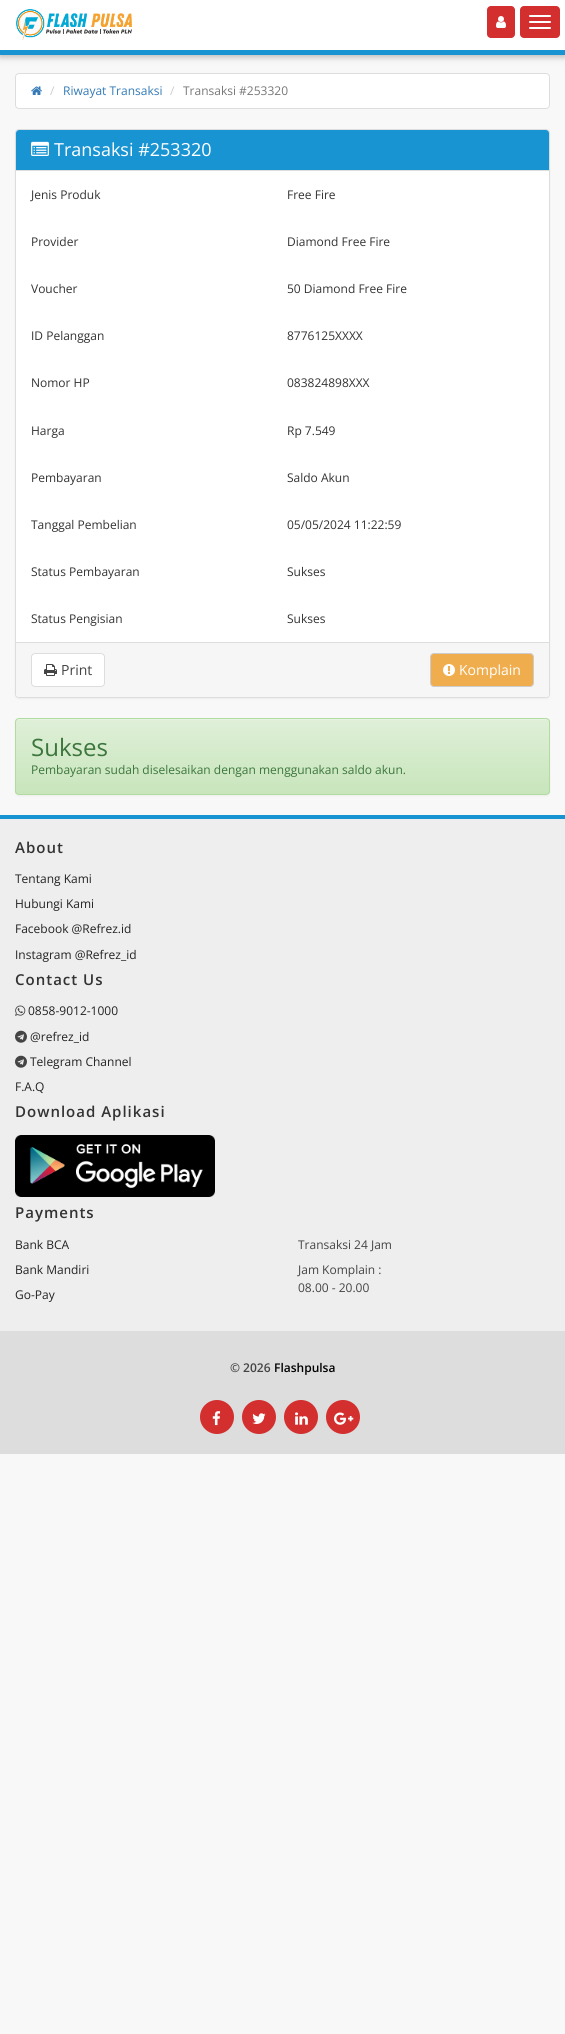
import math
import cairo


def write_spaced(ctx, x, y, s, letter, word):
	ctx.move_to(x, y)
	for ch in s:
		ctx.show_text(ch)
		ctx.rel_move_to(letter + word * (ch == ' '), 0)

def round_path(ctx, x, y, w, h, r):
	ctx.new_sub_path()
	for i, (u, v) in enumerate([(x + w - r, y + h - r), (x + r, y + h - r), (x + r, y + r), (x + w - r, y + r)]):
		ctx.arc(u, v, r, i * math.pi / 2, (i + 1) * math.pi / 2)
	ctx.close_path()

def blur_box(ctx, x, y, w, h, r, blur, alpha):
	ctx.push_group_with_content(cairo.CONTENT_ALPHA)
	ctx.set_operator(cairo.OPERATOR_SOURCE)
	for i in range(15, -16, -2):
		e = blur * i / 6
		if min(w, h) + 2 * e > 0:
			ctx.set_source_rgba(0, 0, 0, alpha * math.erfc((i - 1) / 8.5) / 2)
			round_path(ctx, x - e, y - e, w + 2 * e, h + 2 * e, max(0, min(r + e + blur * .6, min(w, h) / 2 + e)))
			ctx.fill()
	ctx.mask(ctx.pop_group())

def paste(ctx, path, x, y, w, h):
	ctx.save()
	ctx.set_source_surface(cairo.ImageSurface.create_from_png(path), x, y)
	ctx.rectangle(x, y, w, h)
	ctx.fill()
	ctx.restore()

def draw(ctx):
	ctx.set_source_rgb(0.969, 0.969, 0.969)
	ctx.paint()
	ctx.set_source_rgb(0, 0, 0)
	blur_box(ctx, 0, 2, 565, 55, 0, 5, 0.12)
	blur_box(ctx, 0, 2, 565, 55, 0, 2.5, 0.16)
	ctx.set_source_rgb(1, 1, 1)
	ctx.rectangle(0, 0, 565, 50)
	ctx.fill()
	ctx.set_source_rgb(0.098, 0.58, 0.827)
	ctx.rectangle(0, 50, 565, 5)
	ctx.fill()
	paste(ctx, 'media/1.png', 16, 9, 116, 31)
	ctx.set_source_rgb(0.827, 0.184, 0.184)
	round_path(ctx, 487, 6, 28, 32, 4)
	ctx.fill()
	paste(ctx, 'media/2.png', 496, 16, 10, 12)
	round_path(ctx, 520, 6, 40, 32, 4)
	ctx.fill()
	ctx.set_source_rgb(1, 1, 1)
	round_path(ctx, 529, 15, 22, 2, 1)
	ctx.fill()
	round_path(ctx, 529, 21, 22, 2, 1)
	ctx.fill()
	round_path(ctx, 529, 27, 22, 2, 1)
	ctx.fill()
	round_path(ctx, 15.5, 73.5, 534, 35, 3.5)
	ctx.fill_preserve()
	ctx.set_source_rgb(0.867, 0.867, 0.867)
	ctx.set_line_width(1)
	ctx.stroke()
	paste(ctx, 'media/3.png', 31, 86, 11, 9)
	ctx.select_font_face('Open Sans')
	ctx.set_font_size(12)
	ctx.set_source_rgb(0.8, 0.8, 0.8)
	ctx.move_to(50, 95)
	ctx.show_text('/')
	ctx.set_source_rgb(0.2, 0.478, 0.718)
	ctx.move_to(63, 95)
	ctx.show_text('Riwayat Transaksi')
	ctx.set_source_rgb(0.8, 0.8, 0.8)
	ctx.move_to(170, 95)
	ctx.show_text('/')
	ctx.set_source_rgb(0.467, 0.467, 0.467)
	ctx.move_to(183, 95)
	ctx.show_text('Transaksi #253320')
	ctx.set_source_rgb(0, 0, 0)
	blur_box(ctx, 15, 130, 535, 569, 4, 1, 0.05)
	ctx.set_source_rgb(1, 1, 1)
	round_path(ctx, 15.5, 129.5, 534, 568, 3.5)
	ctx.fill_preserve()
	ctx.set_source_rgb(0.867, 0.867, 0.867)
	ctx.stroke()
	ctx.set_source_rgb(0.098, 0.58, 0.827)
	ctx.new_path()
	ctx.move_to(19, 130)
	ctx.line_to(546, 130)
	ctx.curve_to(547.5, 130, 549, 131.5, 549, 133)
	ctx.line_to(549, 171)
	ctx.line_to(16, 171)
	ctx.line_to(16, 133)
	ctx.curve_to(16, 131.5, 17.5, 130, 19, 130)
	ctx.close_path()
	ctx.fill()
	ctx.set_source_rgb(0.867, 0.867, 0.867)
	ctx.rectangle(16, 170, 533, 1)
	ctx.fill()
	paste(ctx, 'media/4.png', 31, 141, 18, 15)
	ctx.set_font_size(18)
	ctx.set_source_rgb(1, 1, 1)
	ctx.move_to(54, 156)
	ctx.show_text('Transaksi #253320')
	ctx.set_font_size(12)
	ctx.set_source_rgb(0.2, 0.2, 0.2)
	for x, y, s in [
		(31, 199, 'Jenis Produk'),
		(287, 199, 'Free Fire'),
		(31, 246, 'Provider'),
		(287, 246, 'Diamond Free Fire'),
		(31, 293, 'Voucher'),
		(287, 293, '50 Diamond Free Fire'),
		(31, 340, 'ID Pelanggan'),
		(287, 340, '8776125XXXX'),
		(31, 387, 'Nomor HP'),
		(287, 387, '083824898XXX'),
		(31, 435, 'Harga'),
		(287, 435, 'Rp 7.549'),
		(31, 482, 'Pembayaran'),
		(287, 482, 'Saldo Akun'),
		(31, 529, 'Tanggal Pembelian'),
		(287, 529, '05/05/2024 11:22:59'),
		(31, 576, 'Status Pembayaran'),
		(287, 576, 'Sukses'),
		(31, 623, 'Status Pengisian'),
		(287, 623, 'Sukses'),
	]:
		ctx.move_to(x, y)
		ctx.show_text(s)
	ctx.set_source_rgb(0.961, 0.961, 0.961)
	ctx.new_path()
	ctx.move_to(16, 642)
	ctx.line_to(549, 642)
	ctx.line_to(549, 694)
	ctx.curve_to(549, 695.5, 547.5, 697, 546, 697)
	ctx.line_to(19, 697)
	ctx.curve_to(17.5, 697, 16, 695.5, 16, 694)
	ctx.close_path()
	ctx.fill()
	ctx.set_source_rgb(0.867, 0.867, 0.867)
	ctx.rectangle(16, 642, 533, 1)
	ctx.fill()
	ctx.set_source_rgb(1, 1, 1)
	round_path(ctx, 31.5, 653.5, 73, 33, 3.5)
	ctx.fill_preserve()
	ctx.set_source_rgb(0.867, 0.867, 0.867)
	ctx.stroke()
	paste(ctx, 'media/5.png', 44, 664, 13, 12)
	ctx.set_font_size(14)
	ctx.set_source_rgb(0.267, 0.267, 0.267)
	ctx.move_to(61, 675)
	ctx.show_text('Print')
	ctx.set_source_rgb(0.941, 0.678, 0.306)
	round_path(ctx, 430.5, 653.5, 103, 33, 3.5)
	ctx.fill_preserve()
	ctx.set_source_rgb(0.8, 0.8, 0.8)
	ctx.stroke()
	paste(ctx, 'media/6.png', 443, 664, 12, 12)
	ctx.set_source_rgb(1, 1, 1)
	ctx.move_to(459, 675)
	ctx.show_text('Komplain')
	ctx.set_source_rgb(0, 0, 0)
	blur_box(ctx, 15, 719, 535, 77, 4, 1, 0.05)
	ctx.save()
	round_path(ctx, 15, 718, 535, 77, 4)
	ctx.clip()
	gradient = cairo.LinearGradient(283, 719, 283, 794)
	gradient.add_color_stop_rgba(0, 0.875, 0.941, 0.847, 1)
	gradient.add_color_stop_rgba(1, 0.784, 0.898, 0.737, 1)
	ctx.set_source(gradient)
	ctx.rectangle(15, 719, 535, 75)
	ctx.fill()
	ctx.restore()
	ctx.set_source_rgb(0.906, 0.957, 0.886)
	ctx.new_path()
	ctx.move_to(19, 720)
	ctx.line_to(546, 720)
	ctx.curve_to(548, 720, 549, 721, 549, 723)
	ctx.line_to(548, 720)
	ctx.line_to(546, 719)
	ctx.line_to(19, 719)
	ctx.curve_to(17, 719, 16, 721, 16, 723)
	ctx.curve_to(16, 721, 17, 720, 19, 720)
	ctx.close_path()
	ctx.fill()
	round_path(ctx, 15.5, 718.5, 534, 76, 3.5)
	ctx.set_source_rgb(0.698, 0.859, 0.631)
	ctx.stroke()
	ctx.set_font_size(24)
	ctx.set_source_rgb(0.235, 0.463, 0.239)
	ctx.move_to(31, 756)
	ctx.show_text('Sukses')
	ctx.set_font_size(12)
	ctx.move_to(31, 774)
	ctx.show_text('Pembayaran sudah diselesaikan dengan menggunakan saldo akun.')
	ctx.set_source_rgb(0.933, 0.933, 0.933)
	ctx.rectangle(0, 819, 565, 512)
	ctx.fill()
	ctx.set_source_rgb(0.098, 0.58, 0.827)
	ctx.rectangle(0, 815, 565, 4)
	ctx.fill()
	ctx.select_font_face('Open Sans SemiBold')
	ctx.set_font_size(15)
	ctx.set_source_rgb(0.2, 0.2, 0.2)
	write_spaced(ctx, 15, 853, 'About', 1, 0)
	ctx.select_font_face('Open Sans')
	ctx.set_font_size(12)
	ctx.set_source_rgb(0.133, 0.133, 0.133)
	for x, y, s in [
		(15, 883, 'Tentang Kami'),
		(15, 908, 'Hubungi Kami'),
		(15, 933, 'Facebook @Refrez.id'),
		(15, 959, 'Instagram @Refrez_id'),
	]:
		ctx.move_to(x, y)
		ctx.show_text(s)
	ctx.select_font_face('Open Sans SemiBold')
	ctx.set_font_size(15)
	ctx.set_source_rgb(0.2, 0.2, 0.2)
	write_spaced(ctx, 15, 985, 'Contact Us', 1, 0)
	paste(ctx, 'media/7.png', 15, 1005, 11, 11)
	ctx.select_font_face('Open Sans')
	ctx.set_font_size(12)
	ctx.set_source_rgb(0.133, 0.133, 0.133)
	ctx.move_to(28, 1015)
	ctx.show_text('0858-9012-1000')
	paste(ctx, 'media/8.png', 15, 1030, 12, 13)
	ctx.move_to(30, 1041)
	ctx.show_text('@refrez_id')
	paste(ctx, 'media/8.png', 15, 1055, 12, 13)
	ctx.move_to(30, 1066)
	ctx.show_text('Telegram Channel')
	ctx.move_to(15, 1091)
	ctx.show_text('F.A.Q')
	ctx.select_font_face('Open Sans SemiBold')
	ctx.set_font_size(15)
	ctx.set_source_rgb(0.2, 0.2, 0.2)
	write_spaced(ctx, 15, 1117, 'Download Aplikasi', 1, 0)
	paste(ctx, 'media/9.png', 15, 1135, 200, 62)
	write_spaced(ctx, 15, 1218, 'Payments', 1, 0)
	ctx.select_font_face('Open Sans')
	ctx.set_font_size(12)
	ctx.set_source_rgb(0.133, 0.133, 0.133)
	for x, y, s in [
		(15, 1249, 'Bank BCA'),
		(15, 1274, 'Bank Mandiri'),
		(15, 1299, 'Go-Pay'),
	]:
		ctx.move_to(x, y)
		ctx.show_text(s)
	ctx.set_source_rgb(0.267, 0.267, 0.267)
	for x, y, s in [
		(298, 1249, 'Transaksi 24 Jam'),
		(298, 1274, 'Jam Komplain :'),
		(298, 1292, '08.00 - 20.00'),
	]:
		ctx.move_to(x, y)
		ctx.show_text(s)
	ctx.set_source_rgb(0.867, 0.867, 0.867)
	ctx.rectangle(0, 1331, 565, 123)
	ctx.fill()
	ctx.select_font_face('Open Sans SemiBold')
	ctx.set_source_rgb(0.267, 0.267, 0.267)
	ctx.move_to(230, 1372)
	ctx.show_text('© 2026')
	ctx.set_source_rgb(0, 0, 0)
	ctx.move_to(274, 1372)
	ctx.show_text('Flashpulsa')
	ctx.set_source_rgb(0.827, 0.184, 0.184)
	ctx.new_path()
	ctx.arc(217, 1417, 17, 0, 2 * math.pi)
	ctx.fill()
	paste(ctx, 'media/10.png', 212, 1411, 9, 15)
	ctx.arc(259, 1417, 17, 0, 2 * math.pi)
	ctx.fill()
	paste(ctx, 'media/11.png', 252, 1413, 14, 11)
	ctx.arc(301, 1417, 17, 0, 2 * math.pi)
	ctx.fill()
	paste(ctx, 'media/12.png', 295, 1412, 13, 13)
	ctx.arc(343, 1417, 17, 0, 2 * math.pi)
	ctx.fill()
	paste(ctx, 'media/13.png', 334, 1412, 20, 13)


surface = cairo.ImageSurface(cairo.FORMAT_RGB24, 565, 2034)
ctx = cairo.Context(surface)
options = cairo.FontOptions()
options.set_hint_metrics(cairo.HINT_METRICS_OFF)
options.set_hint_style(cairo.HINT_STYLE_NONE)
ctx.set_font_options(options)
ctx.set_miter_limit(4)
draw(ctx)
surface.write_to_png('image.png')
